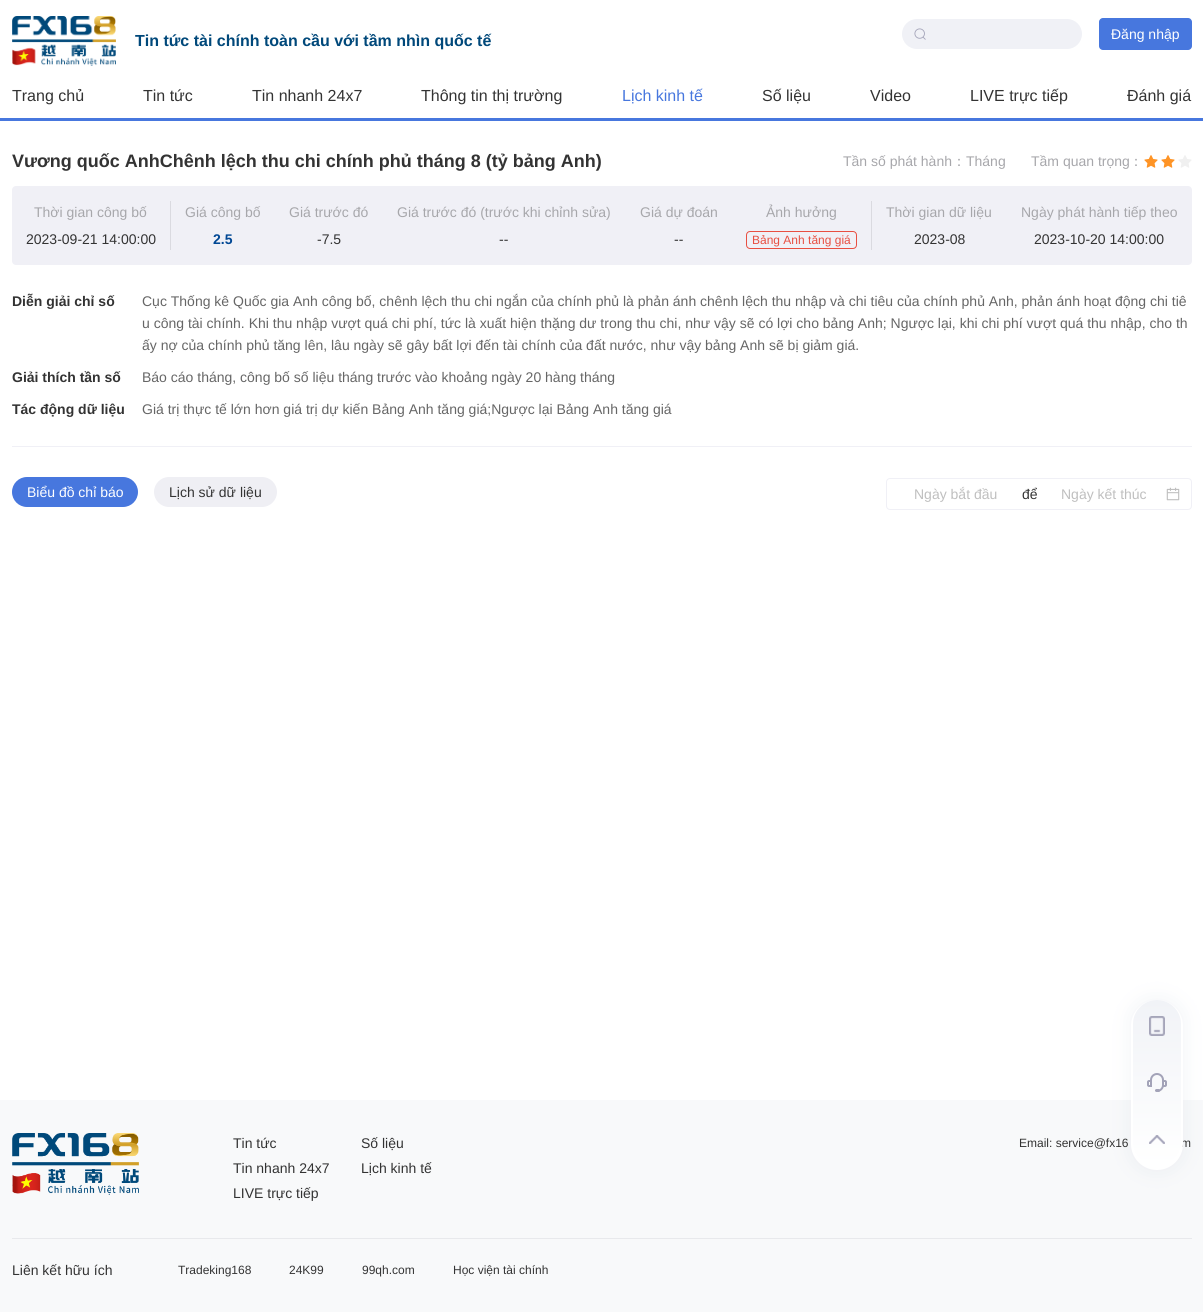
import math
import cairo


def round_path(ctx, x, y, w, h, r):
	ctx.new_sub_path()
	for i, (u, v) in enumerate([(x + w - r, y + h - r), (x + r, y + h - r), (x + r, y + r), (x + w - r, y + r)]):
		ctx.arc(u, v, r, i * math.pi / 2, (i + 1) * math.pi / 2)
	ctx.close_path()

def blur_box(ctx, x, y, w, h, r, blur, alpha):
	ctx.push_group_with_content(cairo.CONTENT_ALPHA)
	ctx.set_operator(cairo.OPERATOR_SOURCE)
	for i in range(15, -16, -2):
		e = blur * i / 6
		if min(w, h) + 2 * e > 0:
			ctx.set_source_rgba(0, 0, 0, alpha * math.erfc((i - 1) / 8.5) / 2)
			round_path(ctx, x - e, y - e, w + 2 * e, h + 2 * e, max(0, min(r + e + blur * .6, min(w, h) / 2 + e)))
			ctx.fill()
	ctx.mask(ctx.pop_group())

def paste(ctx, path, x, y, w, h):
	ctx.save()
	ctx.set_source_surface(cairo.ImageSurface.create_from_png(path), x, y)
	ctx.rectangle(x, y, w, h)
	ctx.fill()
	ctx.restore()

def draw(ctx):
	ctx.set_source_rgb(1, 1, 1)
	ctx.paint()
	paste(ctx, 'media/1.png', 12, 16, 104, 50)
	ctx.select_font_face('Liberation Sans', cairo.FONT_SLANT_NORMAL, cairo.FONT_WEIGHT_BOLD)
	ctx.set_font_size(16)
	ctx.set_source_rgb(0, 0.282, 0.478)
	ctx.move_to(135, 46)
	ctx.show_text('Tin tức tài chính toàn cầu với tầm nhìn quốc tế')
	ctx.set_source_rgb(0.941, 0.945, 0.961)
	round_path(ctx, 902, 19, 180, 30, 15)
	ctx.fill()
	paste(ctx, 'media/2.png', 914, 28, 12, 12)
	ctx.set_source_rgb(0.278, 0.467, 0.871)
	round_path(ctx, 1099, 18, 93, 32, 4)
	ctx.fill()
	ctx.select_font_face('Liberation Sans')
	ctx.set_font_size(14)
	ctx.set_source_rgb(1, 1, 1)
	ctx.move_to(1111, 39)
	ctx.show_text('Đăng nhập')
	ctx.set_source_rgb(0.278, 0.467, 0.871)
	ctx.rectangle(0, 118, 1203, 3)
	ctx.fill()
	ctx.set_font_size(16)
	ctx.set_source_rgb(0.2, 0.2, 0.2)
	for x, y, s in [
		(12, 101, 'Trang chủ'),
		(143, 101, 'Tin tức'),
		(252, 101, 'Tin nhanh 24x7'),
		(421, 101, 'Thông tin thị trường'),
	]:
		ctx.move_to(x, y)
		ctx.show_text(s)
	ctx.set_source_rgb(0.278, 0.467, 0.871)
	ctx.move_to(622, 101)
	ctx.show_text('Lịch kinh tế')
	ctx.set_source_rgb(0.2, 0.2, 0.2)
	for x, y, s in [
		(762, 101, 'Số liệu'),
		(870, 101, 'Video'),
		(970, 101, 'LIVE trực tiếp'),
		(1127, 101, 'Đánh giá'),
	]:
		ctx.move_to(x, y)
		ctx.show_text(s)
	ctx.set_source_rgb(0.941, 0.941, 0.961)
	ctx.rectangle(12, 446, 1180, 1)
	ctx.fill()
	ctx.select_font_face('Liberation Sans', cairo.FONT_SLANT_NORMAL, cairo.FONT_WEIGHT_BOLD)
	ctx.set_font_size(18)
	ctx.set_source_rgb(0.2, 0.2, 0.2)
	ctx.move_to(12, 167)
	ctx.show_text('Vương quốc AnhChênh lệch thu chi chính phủ tháng 8 (tỷ bảng Anh)')
	ctx.select_font_face('Liberation Sans')
	ctx.set_font_size(14)
	ctx.set_source_rgb(0.655, 0.655, 0.671)
	ctx.move_to(843, 166)
	ctx.show_text('Tần số phát hành')
	ctx.select_font_face('WenQuanYi Zen Hei Medium')
	ctx.move_to(952, 166)
	ctx.show_text('：')
	ctx.select_font_face('Liberation Sans')
	ctx.move_to(966, 166)
	ctx.show_text('Tháng')
	ctx.move_to(1031, 166)
	ctx.show_text('Tầm quan trọng')
	ctx.select_font_face('WenQuanYi Zen Hei Medium')
	ctx.move_to(1129, 166)
	ctx.show_text('：')
	paste(ctx, 'media/3.png', 1144, 155, 14, 13)
	paste(ctx, 'media/3.png', 1161, 155, 14, 13)
	paste(ctx, 'media/4.png', 1178, 155, 14, 13)
	ctx.set_source_rgb(0.941, 0.941, 0.961)
	round_path(ctx, 12, 186, 1180, 79, 4)
	ctx.fill()
	ctx.select_font_face('Liberation Sans')
	ctx.set_source_rgb(0.655, 0.655, 0.671)
	ctx.move_to(34, 217)
	ctx.show_text('Thời gian công bố')
	ctx.set_source_rgb(0.2, 0.2, 0.2)
	ctx.move_to(26, 244)
	ctx.show_text('2023-09-21 14:00:00')
	ctx.set_source_rgb(0.855, 0.855, 0.878)
	ctx.rectangle(170, 201, 1, 49)
	ctx.fill()
	ctx.set_source_rgb(0.655, 0.655, 0.671)
	ctx.move_to(185, 217)
	ctx.show_text('Giá công bố')
	ctx.select_font_face('Liberation Sans', cairo.FONT_SLANT_NORMAL, cairo.FONT_WEIGHT_BOLD)
	ctx.set_source_rgb(0, 0.278, 0.58)
	ctx.move_to(213, 244)
	ctx.show_text('2.5')
	ctx.select_font_face('Liberation Sans')
	ctx.set_source_rgb(0.655, 0.655, 0.671)
	ctx.move_to(289, 217)
	ctx.show_text('Giá trước đó')
	ctx.set_source_rgb(0.2, 0.2, 0.2)
	ctx.move_to(317, 244)
	ctx.show_text('-7.5')
	ctx.set_source_rgb(0.655, 0.655, 0.671)
	ctx.move_to(397, 217)
	ctx.show_text('Giá trước đó (trước khi chỉnh sửa)')
	ctx.set_source_rgb(0.2, 0.2, 0.2)
	ctx.move_to(499, 244)
	ctx.show_text('--')
	ctx.set_source_rgb(0.655, 0.655, 0.671)
	ctx.move_to(640, 217)
	ctx.show_text('Giá dự đoán')
	ctx.set_source_rgb(0.2, 0.2, 0.2)
	ctx.move_to(674, 244)
	ctx.show_text('--')
	ctx.set_source_rgb(0.655, 0.655, 0.671)
	ctx.move_to(766, 217)
	ctx.show_text('Ảnh hưởng')
	round_path(ctx, 746.5, 231.5, 110, 17, 3.5)
	ctx.set_source_rgb(0.91, 0.31, 0.259)
	ctx.set_line_width(1)
	ctx.stroke()
	ctx.set_font_size(12)
	ctx.move_to(752, 244)
	ctx.show_text('Bảng Anh tăng giá')
	ctx.set_source_rgb(0.855, 0.855, 0.878)
	ctx.rectangle(871, 201, 1, 49)
	ctx.fill()
	ctx.set_font_size(14)
	ctx.set_source_rgb(0.655, 0.655, 0.671)
	ctx.move_to(886, 217)
	ctx.show_text('Thời gian dữ liệu')
	ctx.set_source_rgb(0.2, 0.2, 0.2)
	ctx.move_to(914, 244)
	ctx.show_text('2023-08')
	ctx.set_source_rgb(0.655, 0.655, 0.671)
	ctx.move_to(1021, 217)
	ctx.show_text('Ngày phát hành tiếp theo')
	ctx.set_source_rgb(0.2, 0.2, 0.2)
	ctx.move_to(1034, 244)
	ctx.show_text('2023-10-20 14:00:00')
	ctx.select_font_face('Liberation Sans', cairo.FONT_SLANT_NORMAL, cairo.FONT_WEIGHT_BOLD)
	ctx.move_to(12, 306)
	ctx.show_text('Diễn giải chỉ số')
	ctx.select_font_face('Liberation Sans')
	ctx.set_source_rgb(0.4, 0.4, 0.4)
	for x, y, s in [
		(142, 306, 'Cục Thống kê Quốc gia Anh công bố, chênh lệch thu chi ngắn của chính phủ là phản ánh chênh lệch thu nhập và chi tiêu của chính phủ Anh, phản ánh hoạt động chi tiê'),
		(142, 328, 'u công tài chính. Khi thu nhập vượt quá chi phí, tức là xuất hiện thặng dư trong thu chi, như vậy sẽ có lợi cho bảng Anh; Ngược lại, khi chi phí vượt quá thu nhập, cho th'),
		(142, 350, 'ấy nợ của chính phủ tăng lên, lâu ngày sẽ gây bất lợi đến tài chính của đất nước, như vậy bảng Anh sẽ bị giảm giá.'),
	]:
		ctx.move_to(x, y)
		ctx.show_text(s)
	ctx.select_font_face('Liberation Sans', cairo.FONT_SLANT_NORMAL, cairo.FONT_WEIGHT_BOLD)
	ctx.set_source_rgb(0.2, 0.2, 0.2)
	ctx.move_to(12, 382)
	ctx.show_text('Giải thích tần số')
	ctx.select_font_face('Liberation Sans')
	ctx.set_source_rgb(0.4, 0.4, 0.4)
	ctx.move_to(142, 382)
	ctx.show_text('Báo cáo tháng, công bố số liệu tháng trước vào khoảng ngày 20 hàng tháng')
	ctx.select_font_face('Liberation Sans', cairo.FONT_SLANT_NORMAL, cairo.FONT_WEIGHT_BOLD)
	ctx.set_source_rgb(0.2, 0.2, 0.2)
	ctx.move_to(12, 414)
	ctx.show_text('Tác động dữ liệu')
	ctx.select_font_face('Liberation Sans')
	ctx.set_source_rgb(0.4, 0.4, 0.4)
	ctx.move_to(142, 414)
	ctx.show_text('Giá trị thực tế lớn hơn giá trị dự kiến Bảng Anh tăng giá;Ngược lại Bảng Anh tăng giá')
	ctx.set_source_rgb(0.278, 0.467, 0.871)
	round_path(ctx, 12, 477, 126, 30, 15)
	ctx.fill()
	ctx.set_source_rgb(1, 1, 1)
	ctx.move_to(27, 497)
	ctx.show_text('Biểu đồ chỉ báo')
	ctx.set_source_rgb(0.937, 0.937, 0.957)
	round_path(ctx, 154, 477, 123, 30, 15)
	ctx.fill()
	ctx.set_source_rgb(0.2, 0.2, 0.2)
	ctx.move_to(169, 497)
	ctx.show_text('Lịch sử dữ liệu')
	round_path(ctx, 886.5, 478.5, 305, 31, 3.5)
	ctx.set_source_rgb(0.941, 0.941, 0.961)
	ctx.stroke()
	ctx.set_source_rgb(0.749, 0.749, 0.749)
	ctx.move_to(914, 499)
	ctx.show_text('Ngày bắt đầu')
	ctx.set_source_rgb(0.2, 0.2, 0.2)
	ctx.move_to(1022, 499)
	ctx.show_text('để')
	ctx.set_source_rgb(0.749, 0.749, 0.749)
	ctx.move_to(1061, 499)
	ctx.show_text('Ngày kết thúc')
	paste(ctx, 'media/5.png', 1166, 487, 14, 14)
	ctx.set_source_rgb(0.969, 0.973, 0.98)
	ctx.rectangle(0, 1100, 1203, 212)
	ctx.fill()
	ctx.set_source_rgb(0.678, 0.722, 0.812)
	blur_box(ctx, 1131, 1000, 52, 170, 26, 10, 0.17)
	ctx.set_font_size(12)
	ctx.set_source_rgb(0.2, 0.2, 0.2)
	ctx.move_to(1181, 1147)
	ctx.show_text('m')
	ctx.set_source_rgb(1, 1, 1)
	round_path(ctx, 1131, 1000, 52, 170, 26)
	ctx.fill()
	gradient = cairo.LinearGradient(1157, 1166, 1157, 1000)
	gradient.add_color_stop_rgba(0, 1, 1, 1, 1)
	gradient.add_color_stop_rgba(1, 0.945, 0.953, 0.969, 1)
	ctx.set_source(gradient)
	round_path(ctx, 1133, 1000, 48, 166, 24)
	ctx.fill()
	paste(ctx, 'media/6.png', 1149, 1016, 16, 20)
	paste(ctx, 'media/7.png', 1147, 1073, 20, 19)
	paste(ctx, 'media/8.png', 1149, 1135, 16, 9)
	paste(ctx, 'media/9.png', 12, 1133, 127, 62)
	ctx.set_font_size(14)
	ctx.set_source_rgb(0.2, 0.2, 0.2)
	for x, y, s in [
		(233, 1148, 'Tin tức'),
		(361, 1148, 'Số liệu'),
		(233, 1173, 'Tin nhanh 24x7'),
		(361, 1173, 'Lịch kinh tế'),
		(233, 1198, 'LIVE trực tiếp'),
	]:
		ctx.move_to(x, y)
		ctx.show_text(s)
	ctx.set_font_size(12)
	ctx.move_to(1019, 1147)
	ctx.show_text('Email: service@fx16')
	ctx.set_source_rgb(0.91, 0.914, 0.922)
	ctx.rectangle(12, 1238, 1180, 1)
	ctx.fill()
	ctx.set_font_size(14)
	ctx.set_source_rgb(0.2, 0.2, 0.2)
	ctx.move_to(12, 1275)
	ctx.show_text('Liên kết hữu ích')
	ctx.set_font_size(12)
	for x, y, s in [
		(178, 1274, 'Tradeking168'),
		(289, 1274, '24K99'),
		(362, 1274, '99qh.com'),
		(453, 1274, 'Học viện tài chính'),
	]:
		ctx.move_to(x, y)
		ctx.show_text(s)


surface = cairo.ImageSurface(cairo.FORMAT_RGB24, 1203, 1312)
ctx = cairo.Context(surface)
options = cairo.FontOptions()
options.set_hint_metrics(cairo.HINT_METRICS_OFF)
options.set_hint_style(cairo.HINT_STYLE_NONE)
ctx.set_font_options(options)
ctx.set_miter_limit(4)
draw(ctx)
surface.write_to_png('image.png')
